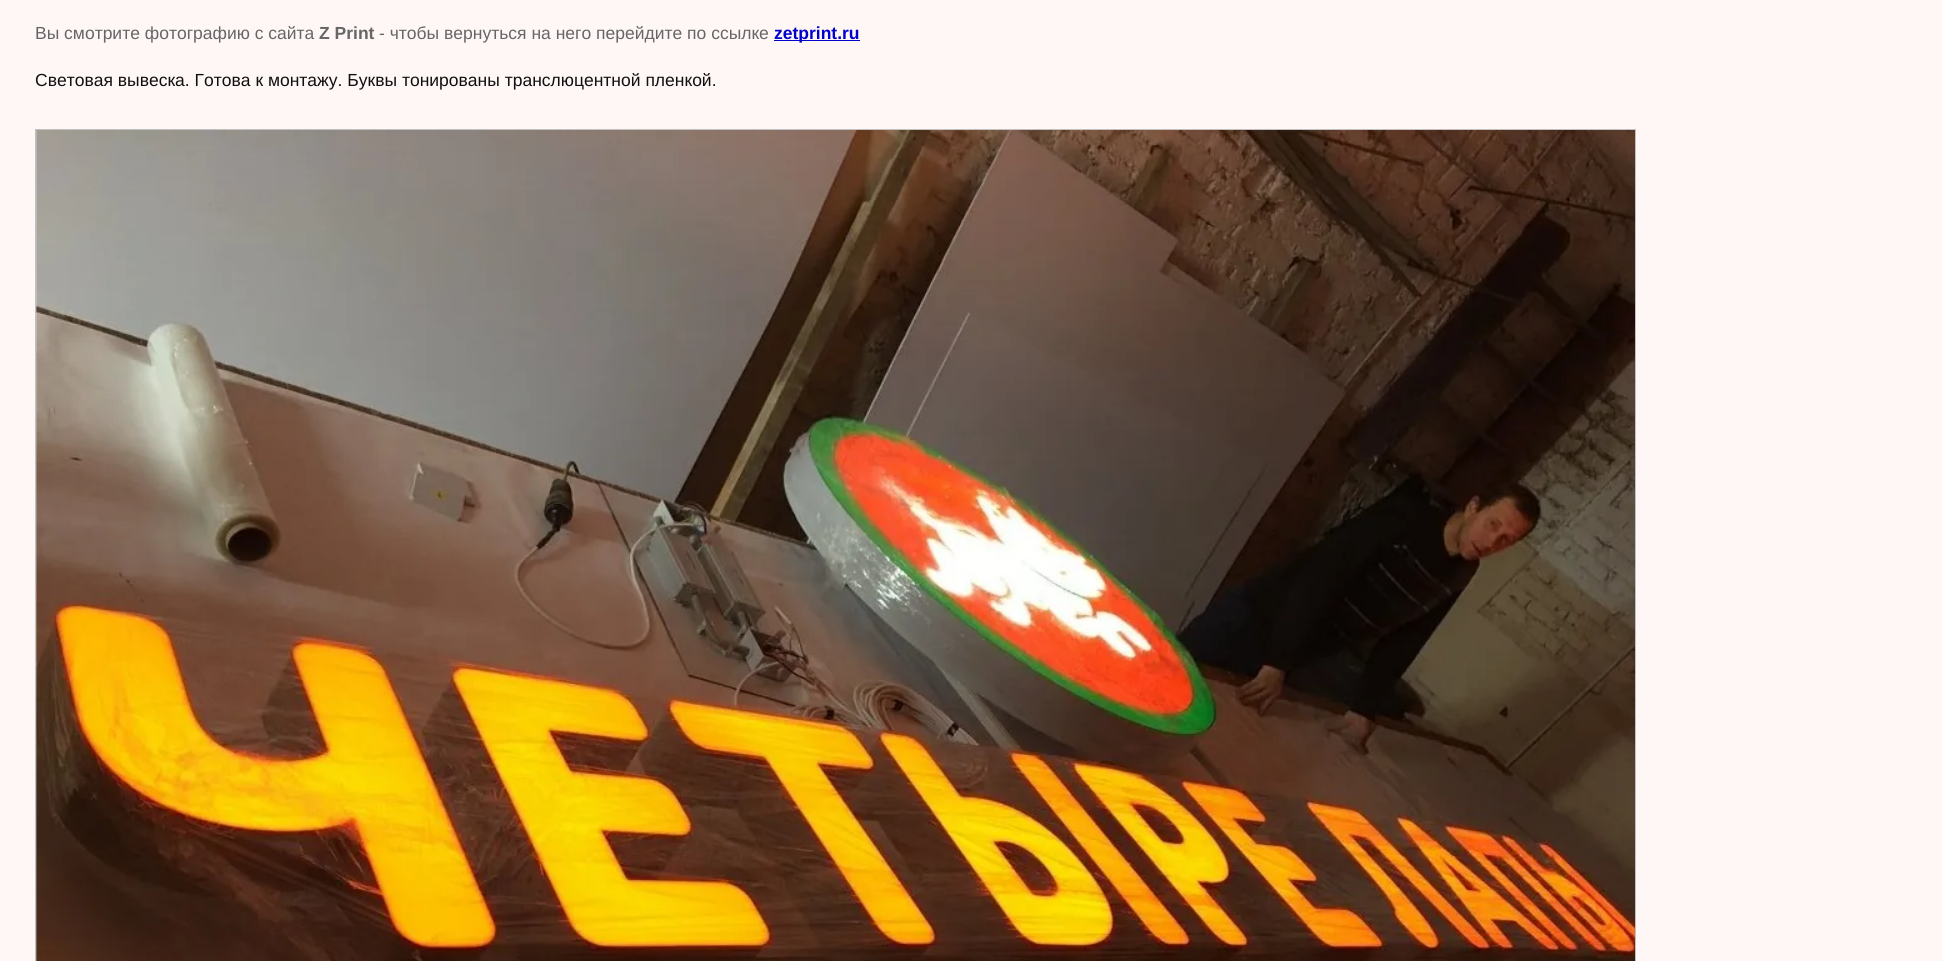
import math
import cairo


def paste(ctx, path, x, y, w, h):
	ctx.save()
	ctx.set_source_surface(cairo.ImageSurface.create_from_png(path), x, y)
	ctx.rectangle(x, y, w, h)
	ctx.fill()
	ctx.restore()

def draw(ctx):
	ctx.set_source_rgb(1, 0.961, 0.961)
	ctx.paint()
	ctx.select_font_face('Liberation Sans')
	ctx.set_font_size(17.5)
	ctx.set_source_rgb(0.4, 0.4, 0.4)
	ctx.move_to(35, 39)
	ctx.show_text('Вы смотрите фотографию с сайта')
	ctx.select_font_face('Liberation Sans', cairo.FONT_SLANT_NORMAL, cairo.FONT_WEIGHT_BOLD)
	ctx.move_to(319, 39)
	ctx.show_text('Z Print')
	ctx.select_font_face('Liberation Sans')
	ctx.move_to(379, 39)
	ctx.show_text('- чтобы вернуться на него перейдите по ссылке')
	ctx.set_source_rgb(0, 0, 0.8)
	ctx.rectangle(774, 40, 86, 1)
	ctx.fill()
	ctx.select_font_face('Liberation Sans', cairo.FONT_SLANT_NORMAL, cairo.FONT_WEIGHT_BOLD)
	ctx.move_to(774, 39)
	ctx.show_text('zetprint.ru')
	ctx.select_font_face('Liberation Sans')
	ctx.set_source_rgb(0.067, 0.063, 0.063)
	ctx.move_to(35, 86)
	ctx.show_text('Световая вывеска. Готова к монтажу. Буквы тонированы транслюцентной пленкой.')
	ctx.rectangle(35.5, 129.5, 1600, 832)
	ctx.set_source_rgb(0.753, 0.753, 0.753)
	ctx.set_line_width(1)
	ctx.stroke()
	paste(ctx, 'media/1.png', 36, 130, 1599, 831)


surface = cairo.ImageSurface(cairo.FORMAT_RGB24, 1942, 961)
ctx = cairo.Context(surface)
options = cairo.FontOptions()
options.set_hint_metrics(cairo.HINT_METRICS_OFF)
options.set_hint_style(cairo.HINT_STYLE_NONE)
ctx.set_font_options(options)
ctx.set_miter_limit(4)
draw(ctx)
surface.write_to_png('image.png')
